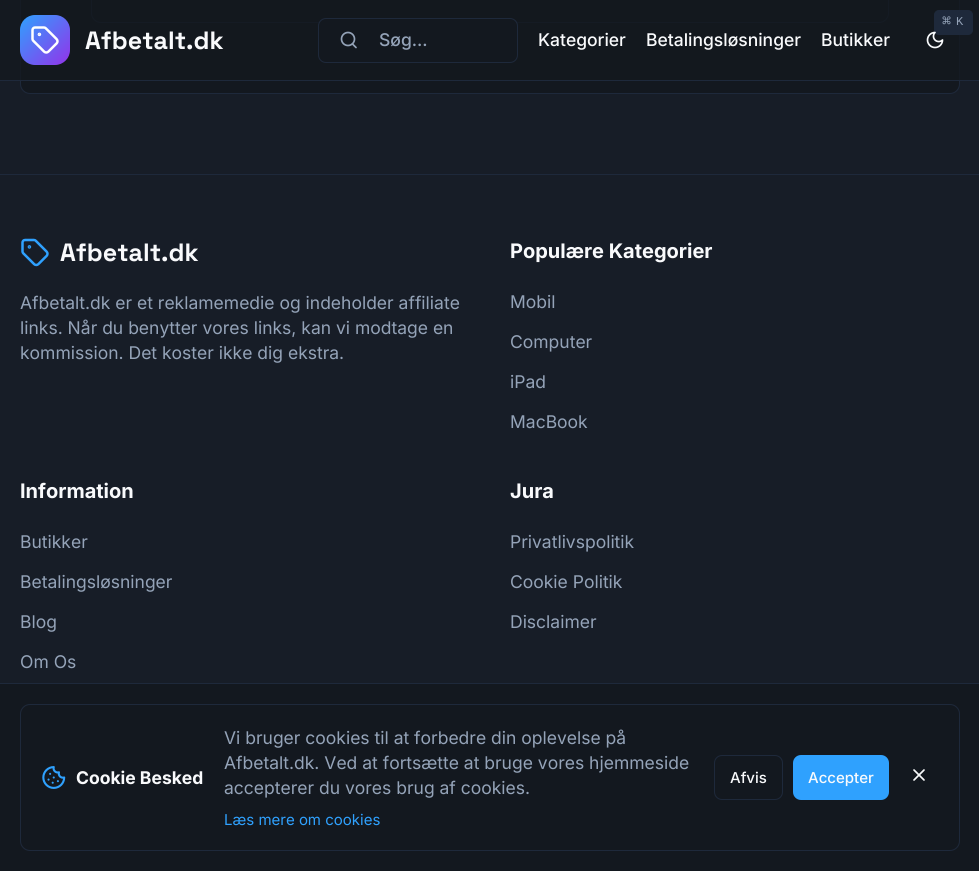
import math
import cairo


def round_path(ctx, x, y, w, h, r):
	ctx.new_sub_path()
	for i, (u, v) in enumerate([(x + w - r, y + h - r), (x + r, y + h - r), (x + r, y + r), (x + w - r, y + r)]):
		ctx.arc(u, v, r, i * math.pi / 2, (i + 1) * math.pi / 2)
	ctx.close_path()

def paste(ctx, path, x, y, w, h):
	ctx.save()
	ctx.set_source_surface(cairo.ImageSurface.create_from_png(path), x, y)
	ctx.rectangle(x, y, w, h)
	ctx.fill()
	ctx.restore()

def draw(ctx):
	ctx.set_source_rgb(0.09, 0.114, 0.153)
	ctx.paint()
	ctx.set_source_rgb(0.078, 0.094, 0.122)
	round_path(ctx, 20.5, -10.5, 939, 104, 9.5)
	ctx.fill_preserve()
	ctx.set_source_rgb(0.118, 0.161, 0.231)
	ctx.set_line_width(1)
	ctx.stroke()
	round_path(ctx, 91.5, -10.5, 797, 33, 9.5)
	ctx.stroke()
	ctx.set_source_rgba(0.078, 0.094, 0.122, 0.8)
	ctx.rectangle(0, 0, 979, 80)
	ctx.fill()
	ctx.set_source_rgb(0.118, 0.161, 0.231)
	ctx.rectangle(0, 80, 979, 1)
	ctx.fill()
	gradient = cairo.LinearGradient(20, 15, 70, 65)
	gradient.add_color_stop_rgba(0, 0.184, 0.631, 0.996, 1)
	gradient.add_color_stop_rgba(1, 0.576, 0.2, 0.918, 1)
	ctx.set_source(gradient)
	round_path(ctx, 20, 15, 50, 50, 15)
	ctx.fill()
	paste(ctx, 'media/1.png', 31, 26, 28, 28)
	ctx.select_font_face('Space Grotesk', cairo.FONT_SLANT_NORMAL, cairo.FONT_WEIGHT_BOLD)
	ctx.set_font_size(25)
	ctx.set_source_rgb(0.973, 0.98, 0.988)
	ctx.move_to(85, 49)
	ctx.show_text('Afbetalt.dk')
	ctx.set_source_rgb(0.078, 0.094, 0.122)
	round_path(ctx, 318.5, 18.5, 199, 44, 7.5)
	ctx.fill_preserve()
	ctx.set_source_rgb(0.118, 0.161, 0.231)
	ctx.stroke()
	round_path(ctx, 934.5, 10.5, 38, 24, 4.5)
	ctx.fill_preserve()
	ctx.stroke()
	ctx.select_font_face('DejaVu Sans Mono')
	ctx.set_font_size(15)
	ctx.set_source_rgb(0.58, 0.639, 0.722)
	ctx.move_to(942, 26)
	ctx.show_text('⌘')
	ctx.select_font_face('Liberation Mono')
	ctx.set_font_size(12)
	ctx.move_to(956, 25)
	ctx.show_text('K')
	ctx.new_path()
	ctx.arc(348, 39, 6.5, 0, 2 * math.pi)
	ctx.set_line_width(1.7)
	ctx.stroke()
	ctx.new_path()
	ctx.move_to(356, 47.5)
	ctx.line_to(352.5, 44)
	ctx.set_line_cap(cairo.LINE_CAP_ROUND)
	ctx.set_line_join(cairo.LINE_JOIN_ROUND)
	ctx.stroke()
	ctx.select_font_face('Inter Medium')
	ctx.set_font_size(17.5)
	ctx.move_to(379, 46)
	ctx.show_text('Søg...')
	ctx.set_source_rgb(0.973, 0.98, 0.988)
	for x, y, s in [
		(538, 46, 'Kategorier'),
		(646, 46, 'Betalingsløsninger'),
		(821, 46, 'Butikker'),
	]:
		ctx.move_to(x, y)
		ctx.show_text(s)
	paste(ctx, 'media/2.png', 926, 31, 18, 18)
	ctx.set_source_rgb(0.078, 0.094, 0.122)
	ctx.rectangle(0, 684, 979, 187)
	ctx.fill()
	ctx.set_source_rgb(0.118, 0.161, 0.231)
	ctx.rectangle(0, 174, 979, 1)
	ctx.fill()
	paste(ctx, 'media/3.png', 21, 238, 28, 29)
	ctx.select_font_face('Space Grotesk', cairo.FONT_SLANT_NORMAL, cairo.FONT_WEIGHT_BOLD)
	ctx.set_font_size(25)
	ctx.set_source_rgb(0.973, 0.98, 0.988)
	ctx.move_to(60, 261)
	ctx.show_text('Afbetalt.dk')
	ctx.select_font_face('Inter')
	ctx.set_font_size(17.5)
	ctx.set_source_rgb(0.58, 0.639, 0.722)
	for x, y, s in [
		(20, 309, 'Afbetalt.dk er et reklamemedie og indeholder affiliate'),
		(20, 334, 'links. Når du benytter vores links, kan vi modtage en'),
		(20, 359, 'kommission. Det koster ikke dig ekstra.'),
	]:
		ctx.move_to(x, y)
		ctx.show_text(s)
	ctx.select_font_face('Inter', cairo.FONT_SLANT_NORMAL, cairo.FONT_WEIGHT_BOLD)
	ctx.set_font_size(20)
	ctx.set_source_rgb(0.973, 0.98, 0.988)
	ctx.move_to(510, 258)
	ctx.show_text('Populære Kategorier')
	ctx.select_font_face('Inter')
	ctx.set_font_size(17.5)
	ctx.set_source_rgb(0.58, 0.639, 0.722)
	for x, y, s in [
		(510, 308, 'Mobil'),
		(510, 348, 'Computer'),
		(510, 388, 'iPad'),
		(510, 428, 'MacBook'),
	]:
		ctx.move_to(x, y)
		ctx.show_text(s)
	ctx.select_font_face('Inter', cairo.FONT_SLANT_NORMAL, cairo.FONT_WEIGHT_BOLD)
	ctx.set_font_size(20)
	ctx.set_source_rgb(0.973, 0.98, 0.988)
	ctx.move_to(20, 498)
	ctx.show_text('Information')
	ctx.select_font_face('Inter')
	ctx.set_font_size(17.5)
	ctx.set_source_rgb(0.58, 0.639, 0.722)
	for x, y, s in [
		(20, 548, 'Butikker'),
		(20, 588, 'Betalingsløsninger'),
		(20, 628, 'Blog'),
		(20, 668, 'Om Os'),
	]:
		ctx.move_to(x, y)
		ctx.show_text(s)
	ctx.select_font_face('Inter', cairo.FONT_SLANT_NORMAL, cairo.FONT_WEIGHT_BOLD)
	ctx.set_font_size(20)
	ctx.set_source_rgb(0.973, 0.98, 0.988)
	ctx.move_to(510, 498)
	ctx.show_text('Jura')
	ctx.select_font_face('Inter')
	ctx.set_font_size(17.5)
	ctx.set_source_rgb(0.58, 0.639, 0.722)
	for x, y, s in [
		(510, 548, 'Privatlivspolitik'),
		(510, 588, 'Cookie Politik'),
		(510, 628, 'Disclaimer'),
	]:
		ctx.move_to(x, y)
		ctx.show_text(s)
	ctx.set_source_rgb(0.118, 0.161, 0.231)
	ctx.rectangle(0, 683, 979, 1)
	ctx.fill()
	round_path(ctx, 20.5, 704.5, 939, 146, 9.5)
	ctx.set_line_width(1)
	ctx.set_line_cap(cairo.LINE_CAP_BUTT)
	ctx.set_line_join(cairo.LINE_JOIN_MITER)
	ctx.stroke()
	paste(ctx, 'media/4.png', 42, 766, 24, 23)
	ctx.select_font_face('Inter', cairo.FONT_SLANT_NORMAL, cairo.FONT_WEIGHT_BOLD)
	ctx.set_source_rgb(0.973, 0.98, 0.988)
	ctx.move_to(76, 784)
	ctx.show_text('Cookie Besked')
	ctx.select_font_face('Inter')
	ctx.set_source_rgb(0.58, 0.639, 0.722)
	for x, y, s in [
		(224, 744, 'Vi bruger cookies til at forbedre din oplevelse på'),
		(224, 769, 'Afbetalt.dk. Ved at fortsætte at bruge vores hjemmeside'),
		(224, 794, 'accepterer du vores brug af cookies.'),
	]:
		ctx.move_to(x, y)
		ctx.show_text(s)
	ctx.set_font_size(15)
	ctx.set_source_rgb(0.184, 0.631, 0.996)
	ctx.move_to(224, 825)
	ctx.show_text('Læs mere om cookies')
	round_path(ctx, 714.5, 755.5, 68, 44, 7.5)
	ctx.set_source_rgb(0.118, 0.161, 0.231)
	ctx.stroke()
	ctx.select_font_face('Inter Medium')
	ctx.set_source_rgb(0.973, 0.98, 0.988)
	ctx.move_to(730, 783)
	ctx.show_text('Afvis')
	ctx.set_source_rgb(0.184, 0.631, 0.996)
	round_path(ctx, 793, 755, 96, 45, 8)
	ctx.fill()
	ctx.set_source_rgb(0.973, 0.98, 0.988)
	ctx.move_to(808, 783)
	ctx.show_text('Accepter')
	ctx.new_path()
	ctx.move_to(924, 770)
	ctx.line_to(914, 780)
	ctx.move_to(914, 770)
	ctx.line_to(924, 780)
	ctx.set_line_width(1.7)
	ctx.set_line_cap(cairo.LINE_CAP_ROUND)
	ctx.set_line_join(cairo.LINE_JOIN_ROUND)
	ctx.stroke()


surface = cairo.ImageSurface(cairo.FORMAT_RGB24, 979, 871)
ctx = cairo.Context(surface)
options = cairo.FontOptions()
options.set_hint_metrics(cairo.HINT_METRICS_OFF)
options.set_hint_style(cairo.HINT_STYLE_NONE)
ctx.set_font_options(options)
ctx.set_miter_limit(4)
draw(ctx)
surface.write_to_png('image.png')
